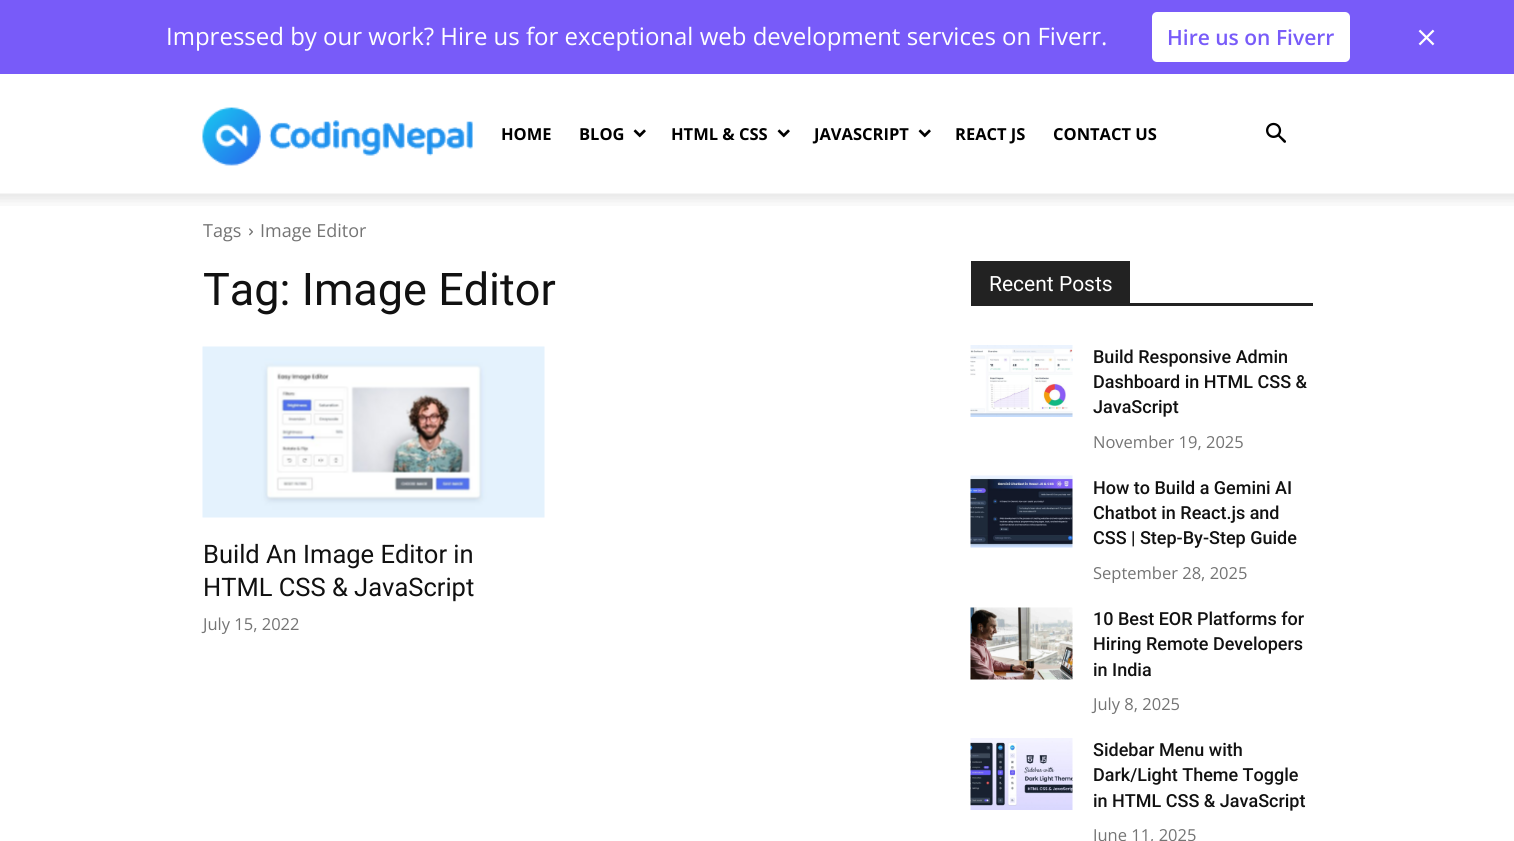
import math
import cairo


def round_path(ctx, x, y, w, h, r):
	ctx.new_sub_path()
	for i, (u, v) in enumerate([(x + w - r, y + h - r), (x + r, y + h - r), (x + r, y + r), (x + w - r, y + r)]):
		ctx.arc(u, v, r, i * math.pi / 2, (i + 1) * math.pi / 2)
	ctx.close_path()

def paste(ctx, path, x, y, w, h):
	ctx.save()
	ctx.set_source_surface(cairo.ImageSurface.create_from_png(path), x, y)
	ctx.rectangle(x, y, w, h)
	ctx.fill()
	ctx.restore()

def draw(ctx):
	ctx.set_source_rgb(1, 1, 1)
	ctx.paint()
	ctx.set_source_rgb(0.471, 0.357, 0.973)
	ctx.rectangle(0, 0, 1514, 74)
	ctx.fill()
	ctx.select_font_face('Open Sans')
	ctx.set_font_size(24)
	ctx.set_source_rgb(1, 1, 1)
	ctx.move_to(166, 45)
	ctx.show_text('Impressed by our work? Hire us for exceptional web development services on Fiverr.')
	round_path(ctx, 1152, 12, 198, 50, 5)
	ctx.fill()
	ctx.select_font_face('Open Sans SemiBold')
	ctx.set_font_size(21)
	ctx.set_source_rgb(0.471, 0.357, 0.973)
	ctx.move_to(1167, 45)
	ctx.show_text('Hire us on Fiverr')
	paste(ctx, 'media/1.png', 1418, 29, 17, 17)
	paste(ctx, 'media/2.png', 202, 107, 271, 59)
	ctx.select_font_face('Open Sans', cairo.FONT_SLANT_NORMAL, cairo.FONT_WEIGHT_BOLD)
	ctx.set_font_size(16.5)
	ctx.set_source_rgb(0, 0, 0)
	ctx.move_to(501, 140)
	ctx.show_text('HOME')
	ctx.move_to(579, 140)
	ctx.show_text('BLOG')
	paste(ctx, 'media/3.png', 633, 129, 13, 9)
	ctx.move_to(671, 140)
	ctx.show_text('HTML & CSS')
	paste(ctx, 'media/3.png', 777, 129, 13, 9)
	ctx.move_to(814, 140)
	ctx.show_text('JAVASCRIPT')
	paste(ctx, 'media/3.png', 918, 129, 13, 9)
	ctx.move_to(955, 140)
	ctx.show_text('REACT JS')
	ctx.move_to(1053, 140)
	ctx.show_text('CONTACT US')
	paste(ctx, 'media/4.png', 1266, 122, 20, 21)
	paste(ctx, 'media/5.png', 0, 193, 1514, 13)
	ctx.select_font_face('Open Sans')
	ctx.set_font_size(18)
	ctx.set_source_rgb(0.455, 0.455, 0.455)
	ctx.move_to(203, 237)
	ctx.show_text('Tags')
	paste(ctx, 'media/6.png', 249, 228, 4, 8)
	ctx.move_to(260, 237)
	ctx.show_text('Image Editor')
	ctx.select_font_face('Roboto')
	ctx.set_font_size(45)
	ctx.set_source_rgb(0.067, 0.067, 0.067)
	ctx.move_to(203, 305)
	ctx.show_text('Tag: Image Editor')
	paste(ctx, 'media/7.png', 202, 346, 343, 172)
	ctx.set_font_size(25.5)
	ctx.move_to(203, 563)
	ctx.show_text('Build An Image Editor in')
	ctx.move_to(203, 596)
	ctx.show_text('HTML CSS & JavaScript')
	ctx.select_font_face('Open Sans')
	ctx.set_font_size(16.5)
	ctx.set_source_rgb(0.455, 0.455, 0.455)
	ctx.move_to(203, 630)
	ctx.show_text('July 15, 2022')
	ctx.set_source_rgb(0.133, 0.133, 0.133)
	ctx.rectangle(971, 303, 342, 3)
	ctx.fill()
	ctx.rectangle(971, 261, 159, 42)
	ctx.fill()
	ctx.select_font_face('Roboto')
	ctx.set_font_size(21)
	ctx.set_source_rgb(1, 1, 1)
	ctx.move_to(989, 291)
	ctx.show_text('Recent Posts')
	paste(ctx, 'media/8.png', 970, 345, 103, 72)
	ctx.select_font_face('Roboto Medium')
	ctx.set_font_size(18)
	ctx.set_source_rgb(0.067, 0.067, 0.067)
	for x, y, s in [
		(1093, 363, 'Build Responsive Admin'),
		(1093, 388, 'Dashboard in HTML CSS &'),
		(1093, 413, 'JavaScript'),
	]:
		ctx.move_to(x, y)
		ctx.show_text(s)
	ctx.select_font_face('Open Sans')
	ctx.set_font_size(16.5)
	ctx.set_source_rgb(0.455, 0.455, 0.455)
	ctx.move_to(1093, 448)
	ctx.show_text('November 19, 2025')
	paste(ctx, 'media/9.png', 970, 475, 103, 73)
	ctx.select_font_face('Roboto Medium')
	ctx.set_font_size(18)
	ctx.set_source_rgb(0.067, 0.067, 0.067)
	for x, y, s in [
		(1093, 494, 'How to Build a Gemini AI'),
		(1093, 519, 'Chatbot in React.js and'),
		(1093, 544, 'CSS | Step-By-Step Guide'),
	]:
		ctx.move_to(x, y)
		ctx.show_text(s)
	ctx.select_font_face('Open Sans')
	ctx.set_font_size(16.5)
	ctx.set_source_rgb(0.455, 0.455, 0.455)
	ctx.move_to(1093, 579)
	ctx.show_text('September 28, 2025')
	paste(ctx, 'media/10.png', 970, 607, 103, 73)
	ctx.select_font_face('Roboto Medium')
	ctx.set_font_size(18)
	ctx.set_source_rgb(0.067, 0.067, 0.067)
	for x, y, s in [
		(1093, 625, '10 Best EOR Platforms for'),
		(1093, 650, 'Hiring Remote Developers'),
		(1093, 676, 'in India'),
	]:
		ctx.move_to(x, y)
		ctx.show_text(s)
	ctx.select_font_face('Open Sans')
	ctx.set_font_size(16.5)
	ctx.set_source_rgb(0.455, 0.455, 0.455)
	ctx.move_to(1093, 710)
	ctx.show_text('July 8, 2025')
	paste(ctx, 'media/11.png', 970, 738, 103, 72)
	ctx.select_font_face('Roboto Medium')
	ctx.set_font_size(18)
	ctx.set_source_rgb(0.067, 0.067, 0.067)
	for x, y, s in [
		(1093, 756, 'Sidebar Menu with'),
		(1093, 781, 'Dark/Light Theme Toggle'),
		(1093, 807, 'in HTML CSS & JavaScript'),
	]:
		ctx.move_to(x, y)
		ctx.show_text(s)
	ctx.select_font_face('Open Sans')
	ctx.set_font_size(16.5)
	ctx.set_source_rgb(0.455, 0.455, 0.455)
	ctx.move_to(1093, 841)
	ctx.show_text('June 11, 2025')


surface = cairo.ImageSurface(cairo.FORMAT_RGB24, 1514, 841)
ctx = cairo.Context(surface)
options = cairo.FontOptions()
options.set_hint_metrics(cairo.HINT_METRICS_OFF)
options.set_hint_style(cairo.HINT_STYLE_NONE)
ctx.set_font_options(options)
ctx.set_miter_limit(4)
draw(ctx)
surface.write_to_png('image.png')
